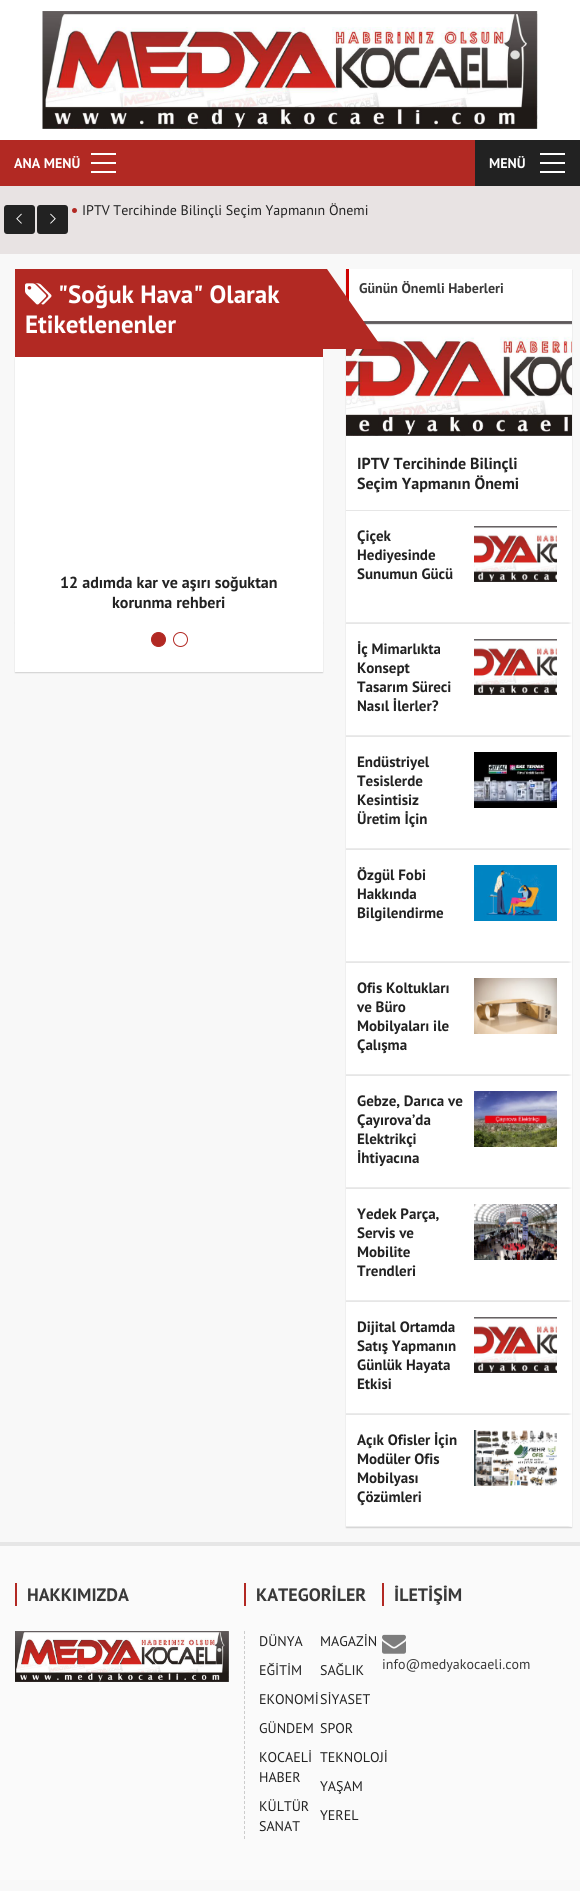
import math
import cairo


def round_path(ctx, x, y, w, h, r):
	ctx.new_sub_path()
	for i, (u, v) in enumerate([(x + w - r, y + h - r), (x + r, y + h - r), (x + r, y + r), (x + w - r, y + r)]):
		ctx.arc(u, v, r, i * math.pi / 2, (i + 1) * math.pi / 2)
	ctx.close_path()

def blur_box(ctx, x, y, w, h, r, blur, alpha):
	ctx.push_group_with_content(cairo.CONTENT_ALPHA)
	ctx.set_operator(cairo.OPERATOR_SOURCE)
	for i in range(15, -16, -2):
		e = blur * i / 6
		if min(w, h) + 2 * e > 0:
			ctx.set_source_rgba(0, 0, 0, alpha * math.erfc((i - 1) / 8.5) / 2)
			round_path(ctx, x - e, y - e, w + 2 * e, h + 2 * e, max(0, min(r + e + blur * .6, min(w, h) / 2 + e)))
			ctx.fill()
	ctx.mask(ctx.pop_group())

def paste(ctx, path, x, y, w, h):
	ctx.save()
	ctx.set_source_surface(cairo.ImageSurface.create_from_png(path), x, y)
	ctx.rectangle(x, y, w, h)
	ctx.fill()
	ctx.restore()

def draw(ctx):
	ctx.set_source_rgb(0.969, 0.969, 0.969)
	ctx.paint()
	ctx.set_source_rgb(1, 1, 1)
	ctx.rectangle(0, 0, 580, 140)
	ctx.fill()
	paste(ctx, 'media/1.png', 42, 11, 496, 118)
	ctx.set_source_rgb(0.698, 0.161, 0.137)
	ctx.rectangle(0, 140, 475, 46)
	ctx.fill()
	ctx.set_source_rgb(1, 1, 1)
	ctx.rectangle(91, 153, 25, 2)
	ctx.fill()
	ctx.select_font_face('PT Sans', cairo.FONT_SLANT_NORMAL, cairo.FONT_WEIGHT_BOLD)
	ctx.set_font_size(14)
	ctx.move_to(14, 168)
	ctx.show_text('ANA MENÜ')
	ctx.rectangle(91, 162, 25, 2)
	ctx.rectangle(91, 171, 25, 2)
	ctx.fill()
	ctx.set_source_rgb(0.133, 0.133, 0.133)
	ctx.rectangle(475, 140, 105, 46)
	ctx.fill()
	ctx.set_source_rgb(1, 1, 1)
	ctx.rectangle(540, 153, 25, 2)
	ctx.fill()
	ctx.move_to(489, 168)
	ctx.show_text('MENÜ')
	ctx.rectangle(540, 162, 25, 2)
	ctx.rectangle(540, 171, 25, 2)
	ctx.fill()
	ctx.set_source_rgb(0.91, 0.89, 0.89)
	ctx.rectangle(0, 186, 580, 68)
	ctx.fill()
	ctx.set_source_rgb(0.133, 0.133, 0.133)
	round_path(ctx, 4, 205, 31, 29, 3)
	ctx.fill()
	paste(ctx, 'media/2.png', 16, 213, 6, 11)
	round_path(ctx, 37, 205, 31, 29, 3)
	ctx.fill()
	paste(ctx, 'media/3.png', 50, 213, 6, 11)
	ctx.set_source_rgb(0.698, 0.161, 0.137)
	ctx.arc(74.5, 210.5, 2.5, 0, 2 * math.pi)
	ctx.fill()
	ctx.select_font_face('PT Sans')
	ctx.set_source_rgb(0.133, 0.133, 0.133)
	ctx.move_to(82, 215)
	ctx.show_text('IPTV Tercihinde Bilinçli Seçim Yapmanın Önemi')
	ctx.set_source_rgb(0.698, 0.161, 0.137)
	ctx.rectangle(15, 269, 60, 80)
	ctx.fill()
	ctx.set_source_rgb(0.827, 0.827, 0.827)
	blur_box(ctx, 346, 270, 226, 1258, 0, 0.5, 1)
	ctx.set_source_rgb(1, 1, 1)
	ctx.rectangle(346, 269, 226, 1258)
	ctx.fill()
	ctx.set_source_rgb(0.808, 0.008, 0.008)
	ctx.rectangle(346, 269, 3, 38)
	ctx.fill()
	ctx.select_font_face('PT Sans', cairo.FONT_SLANT_NORMAL, cairo.FONT_WEIGHT_BOLD)
	ctx.set_source_rgb(0.224, 0.224, 0.224)
	ctx.move_to(359, 293)
	ctx.show_text('Günün Önemli Haberleri')
	paste(ctx, 'media/5.png', 346, 321, 226, 115)
	ctx.set_source_rgb(0.698, 0.161, 0.137)
	ctx.new_path()
	ctx.move_to(19, 269)
	ctx.line_to(327, 269)
	ctx.line_to(383, 349)
	ctx.line_to(75, 349)
	ctx.close_path()
	ctx.fill()
	paste(ctx, 'media/4.png', 25, 283, 27, 22)
	ctx.set_font_size(25)
	ctx.set_source_rgb(1, 1, 1)
	ctx.move_to(58, 303)
	ctx.show_text('"Soğuk Hava" Olarak')
	ctx.move_to(25, 333)
	ctx.show_text('Etiketlenenler')
	ctx.set_source_rgb(0.698, 0.161, 0.137)
	ctx.rectangle(15, 349, 308, 8)
	ctx.fill()
	ctx.set_source_rgb(0.827, 0.827, 0.827)
	blur_box(ctx, 15, 358, 308, 265, 0, 0.5, 1)
	ctx.set_source_rgb(1, 1, 1)
	ctx.rectangle(15, 357, 308, 265)
	ctx.fill()
	ctx.set_font_size(16)
	ctx.set_source_rgb(0.133, 0.133, 0.133)
	ctx.move_to(60, 588)
	ctx.show_text('12 adımda kar ve aşırı soğuktan')
	ctx.move_to(112, 608)
	ctx.show_text('korunma rehberi')
	ctx.set_source_rgb(0.827, 0.827, 0.827)
	blur_box(ctx, 15, 623, 308, 50, 0, 0.5, 1)
	ctx.set_source_rgb(1, 1, 1)
	ctx.rectangle(15, 622, 308, 50)
	ctx.fill()
	ctx.set_source_rgb(0.698, 0.161, 0.137)
	ctx.arc(158.5, 639.5, 7, 0, 2 * math.pi)
	ctx.fill_preserve()
	ctx.set_line_width(1)
	ctx.stroke()
	ctx.arc(180.5, 639.5, 7, 0, 2 * math.pi)
	ctx.stroke()
	ctx.set_source_rgb(0.133, 0.133, 0.133)
	ctx.move_to(357, 469)
	ctx.show_text('IPTV Tercihinde Bilinçli')
	ctx.move_to(357, 489)
	ctx.show_text('Seçim Yapmanın Önemi')
	ctx.set_source_rgb(0.902, 0.902, 0.902)
	ctx.new_path()
	ctx.move_to(346, 510)
	ctx.line_to(572, 510)
	ctx.line_to(568, 511)
	ctx.line_to(346, 511)
	ctx.close_path()
	ctx.fill()
	ctx.set_source_rgb(0.918, 0.918, 0.918)
	ctx.new_path()
	ctx.move_to(572, 623)
	ctx.line_to(346, 623)
	ctx.line_to(346, 622)
	ctx.line_to(568, 622)
	ctx.close_path()
	ctx.fill()
	ctx.set_font_size(15)
	ctx.set_source_rgb(0.133, 0.133, 0.133)
	for x, y, s in [
		(357, 541, 'Çiçek'),
		(357, 560, 'Hediyesinde'),
		(357, 579, 'Sunumun Gücü'),
	]:
		ctx.move_to(x, y)
		ctx.show_text(s)
	paste(ctx, 'media/6.png', 474, 526, 83, 56)
	ctx.set_source_rgb(0.902, 0.902, 0.902)
	ctx.new_path()
	ctx.move_to(346, 623)
	ctx.line_to(572, 623)
	ctx.line_to(568, 624)
	ctx.line_to(346, 624)
	ctx.close_path()
	ctx.fill()
	ctx.set_source_rgb(0.918, 0.918, 0.918)
	ctx.new_path()
	ctx.move_to(572, 736)
	ctx.line_to(346, 736)
	ctx.line_to(346, 735)
	ctx.line_to(568, 735)
	ctx.close_path()
	ctx.fill()
	ctx.set_source_rgb(0.133, 0.133, 0.133)
	for x, y, s in [
		(357, 654, 'İç Mimarlıkta'),
		(357, 673, 'Konsept'),
		(357, 692, 'Tasarım Süreci'),
		(357, 711, 'Nasıl İlerler?'),
	]:
		ctx.move_to(x, y)
		ctx.show_text(s)
	paste(ctx, 'media/6.png', 474, 639, 83, 56)
	ctx.set_source_rgb(0.902, 0.902, 0.902)
	ctx.new_path()
	ctx.move_to(346, 736)
	ctx.line_to(572, 736)
	ctx.line_to(568, 737)
	ctx.line_to(346, 737)
	ctx.close_path()
	ctx.fill()
	ctx.set_source_rgb(0.918, 0.918, 0.918)
	ctx.new_path()
	ctx.move_to(572, 849)
	ctx.line_to(346, 849)
	ctx.line_to(346, 848)
	ctx.line_to(568, 848)
	ctx.close_path()
	ctx.fill()
	ctx.set_source_rgb(0.133, 0.133, 0.133)
	for x, y, s in [
		(357, 767, 'Endüstriyel'),
		(357, 786, 'Tesislerde'),
		(357, 805, 'Kesintisiz'),
		(357, 824, 'Üretim İçin'),
	]:
		ctx.move_to(x, y)
		ctx.show_text(s)
	paste(ctx, 'media/7.png', 474, 752, 83, 56)
	ctx.set_source_rgb(0.902, 0.902, 0.902)
	ctx.new_path()
	ctx.move_to(346, 849)
	ctx.line_to(572, 849)
	ctx.line_to(568, 850)
	ctx.line_to(346, 850)
	ctx.close_path()
	ctx.fill()
	ctx.set_source_rgb(0.918, 0.918, 0.918)
	ctx.new_path()
	ctx.move_to(572, 962)
	ctx.line_to(346, 962)
	ctx.line_to(346, 961)
	ctx.line_to(568, 961)
	ctx.close_path()
	ctx.fill()
	ctx.set_source_rgb(0.133, 0.133, 0.133)
	for x, y, s in [
		(357, 880, 'Özgül Fobi'),
		(357, 899, 'Hakkında'),
		(357, 918, 'Bilgilendirme'),
	]:
		ctx.move_to(x, y)
		ctx.show_text(s)
	paste(ctx, 'media/8.png', 474, 865, 83, 56)
	ctx.set_source_rgb(0.902, 0.902, 0.902)
	ctx.new_path()
	ctx.move_to(346, 962)
	ctx.line_to(572, 962)
	ctx.line_to(568, 963)
	ctx.line_to(346, 963)
	ctx.close_path()
	ctx.fill()
	ctx.set_source_rgb(0.918, 0.918, 0.918)
	ctx.new_path()
	ctx.move_to(572, 1075)
	ctx.line_to(346, 1075)
	ctx.line_to(346, 1074)
	ctx.line_to(568, 1074)
	ctx.close_path()
	ctx.fill()
	ctx.set_source_rgb(0.133, 0.133, 0.133)
	for x, y, s in [
		(357, 993, 'Ofis Koltukları'),
		(357, 1012, 've Büro'),
		(357, 1031, 'Mobilyaları ile'),
		(357, 1050, 'Çalışma'),
	]:
		ctx.move_to(x, y)
		ctx.show_text(s)
	paste(ctx, 'media/9.png', 474, 978, 83, 56)
	ctx.set_source_rgb(0.902, 0.902, 0.902)
	ctx.new_path()
	ctx.move_to(346, 1075)
	ctx.line_to(572, 1075)
	ctx.line_to(568, 1076)
	ctx.line_to(346, 1076)
	ctx.close_path()
	ctx.fill()
	ctx.set_source_rgb(0.918, 0.918, 0.918)
	ctx.new_path()
	ctx.move_to(572, 1188)
	ctx.line_to(346, 1188)
	ctx.line_to(346, 1187)
	ctx.line_to(568, 1187)
	ctx.close_path()
	ctx.fill()
	ctx.set_source_rgb(0.133, 0.133, 0.133)
	for x, y, s in [
		(357, 1106, 'Gebze, Darıca ve'),
		(357, 1125, 'Çayırova’da'),
		(357, 1144, 'Elektrikçi'),
		(357, 1163, 'İhtiyacına'),
	]:
		ctx.move_to(x, y)
		ctx.show_text(s)
	paste(ctx, 'media/10.png', 474, 1091, 83, 56)
	ctx.set_source_rgb(0.902, 0.902, 0.902)
	ctx.new_path()
	ctx.move_to(346, 1188)
	ctx.line_to(572, 1188)
	ctx.line_to(568, 1189)
	ctx.line_to(346, 1189)
	ctx.close_path()
	ctx.fill()
	ctx.set_source_rgb(0.918, 0.918, 0.918)
	ctx.new_path()
	ctx.move_to(572, 1301)
	ctx.line_to(346, 1301)
	ctx.line_to(346, 1300)
	ctx.line_to(568, 1300)
	ctx.close_path()
	ctx.fill()
	ctx.set_source_rgb(0.133, 0.133, 0.133)
	for x, y, s in [
		(357, 1219, 'Yedek Parça,'),
		(357, 1238, 'Servis ve'),
		(357, 1257, 'Mobilite'),
		(357, 1276, 'Trendleri'),
	]:
		ctx.move_to(x, y)
		ctx.show_text(s)
	paste(ctx, 'media/11.png', 474, 1204, 83, 56)
	ctx.set_source_rgb(0.902, 0.902, 0.902)
	ctx.new_path()
	ctx.move_to(346, 1301)
	ctx.line_to(572, 1301)
	ctx.line_to(568, 1302)
	ctx.line_to(346, 1302)
	ctx.close_path()
	ctx.fill()
	ctx.set_source_rgb(0.918, 0.918, 0.918)
	ctx.new_path()
	ctx.move_to(572, 1414)
	ctx.line_to(346, 1414)
	ctx.line_to(346, 1413)
	ctx.line_to(568, 1413)
	ctx.close_path()
	ctx.fill()
	ctx.set_source_rgb(0.133, 0.133, 0.133)
	for x, y, s in [
		(357, 1332, 'Dijital Ortamda'),
		(357, 1351, 'Satış Yapmanın'),
		(357, 1370, 'Günlük Hayata'),
		(357, 1389, 'Etkisi'),
	]:
		ctx.move_to(x, y)
		ctx.show_text(s)
	paste(ctx, 'media/6.png', 474, 1317, 83, 56)
	ctx.set_source_rgb(0.902, 0.902, 0.902)
	ctx.new_path()
	ctx.move_to(346, 1414)
	ctx.line_to(572, 1414)
	ctx.line_to(568, 1415)
	ctx.line_to(346, 1415)
	ctx.close_path()
	ctx.fill()
	ctx.set_source_rgb(0.918, 0.918, 0.918)
	ctx.new_path()
	ctx.move_to(572, 1527)
	ctx.line_to(346, 1527)
	ctx.line_to(346, 1526)
	ctx.line_to(568, 1526)
	ctx.close_path()
	ctx.fill()
	ctx.set_source_rgb(0.133, 0.133, 0.133)
	for x, y, s in [
		(357, 1445, 'Açık Ofisler İçin'),
		(357, 1464, 'Modüler Ofis'),
		(357, 1483, 'Mobilyası'),
		(357, 1502, 'Çözümleri'),
	]:
		ctx.move_to(x, y)
		ctx.show_text(s)
	paste(ctx, 'media/12.png', 474, 1430, 83, 56)
	ctx.set_source_rgb(0.98, 0.98, 0.98)
	ctx.rectangle(0, 1546, 580, 334)
	ctx.fill()
	ctx.set_source_rgb(0.902, 0.902, 0.902)
	ctx.rectangle(0, 1542, 580, 4)
	ctx.fill()
	ctx.set_source_rgb(0.698, 0.161, 0.137)
	ctx.rectangle(15, 1583, 2, 23)
	ctx.fill()
	ctx.set_font_size(18)
	ctx.set_source_rgb(0.224, 0.224, 0.224)
	ctx.move_to(27, 1601)
	ctx.show_text('HAKKIMIZDA')
	paste(ctx, 'media/13.png', 15, 1631, 214, 51)
	ctx.set_source_rgb(0.698, 0.161, 0.137)
	ctx.rectangle(244, 1583, 2, 23)
	ctx.fill()
	ctx.set_source_rgb(0.224, 0.224, 0.224)
	ctx.move_to(256, 1601)
	ctx.show_text('KATEGORİLER')
	ctx.new_path()
	ctx.move_to(244.5, 1631)
	ctx.line_to(244.5, 1839)
	ctx.set_source_rgb(0.8, 0.8, 0.8)
	ctx.set_dash([3, 2])
	ctx.stroke()
	ctx.select_font_face('PT Sans')
	ctx.set_font_size(14)
	ctx.set_source_rgb(0.133, 0.133, 0.133)
	for x, y, s in [
		(259, 1646, 'DÜNYA'),
		(320, 1646, 'MAGAZİN'),
		(259, 1675, 'EĞİTİM'),
		(320, 1675, 'SAĞLIK'),
		(259, 1704, 'EKONOMİ'),
		(320, 1704, 'SİYASET'),
		(259, 1733, 'GÜNDEM'),
		(320, 1733, 'SPOR'),
		(259, 1762, 'KOCAELİ'),
		(259, 1782, 'HABER'),
		(320, 1762, 'TEKNOLOJİ'),
		(320, 1791, 'YAŞAM'),
		(259, 1811, 'KÜLTÜR'),
		(259, 1831, 'SANAT'),
		(320, 1820, 'YEREL'),
	]:
		ctx.move_to(x, y)
		ctx.show_text(s)
	ctx.set_source_rgb(0.698, 0.161, 0.137)
	ctx.rectangle(382, 1583, 2, 23)
	ctx.fill()
	ctx.select_font_face('PT Sans', cairo.FONT_SLANT_NORMAL, cairo.FONT_WEIGHT_BOLD)
	ctx.set_font_size(18)
	ctx.set_source_rgb(0.224, 0.224, 0.224)
	ctx.move_to(394, 1601)
	ctx.show_text('İLETİŞİM')
	paste(ctx, 'media/14.png', 382, 1634, 24, 20)
	ctx.select_font_face('PT Sans')
	ctx.set_font_size(14)
	ctx.move_to(382, 1669)
	ctx.show_text('info@medyakocaeli.com')


surface = cairo.ImageSurface(cairo.FORMAT_RGB24, 580, 1891)
ctx = cairo.Context(surface)
options = cairo.FontOptions()
options.set_hint_metrics(cairo.HINT_METRICS_OFF)
options.set_hint_style(cairo.HINT_STYLE_NONE)
ctx.set_font_options(options)
ctx.set_miter_limit(4)
draw(ctx)
surface.write_to_png('image.png')
